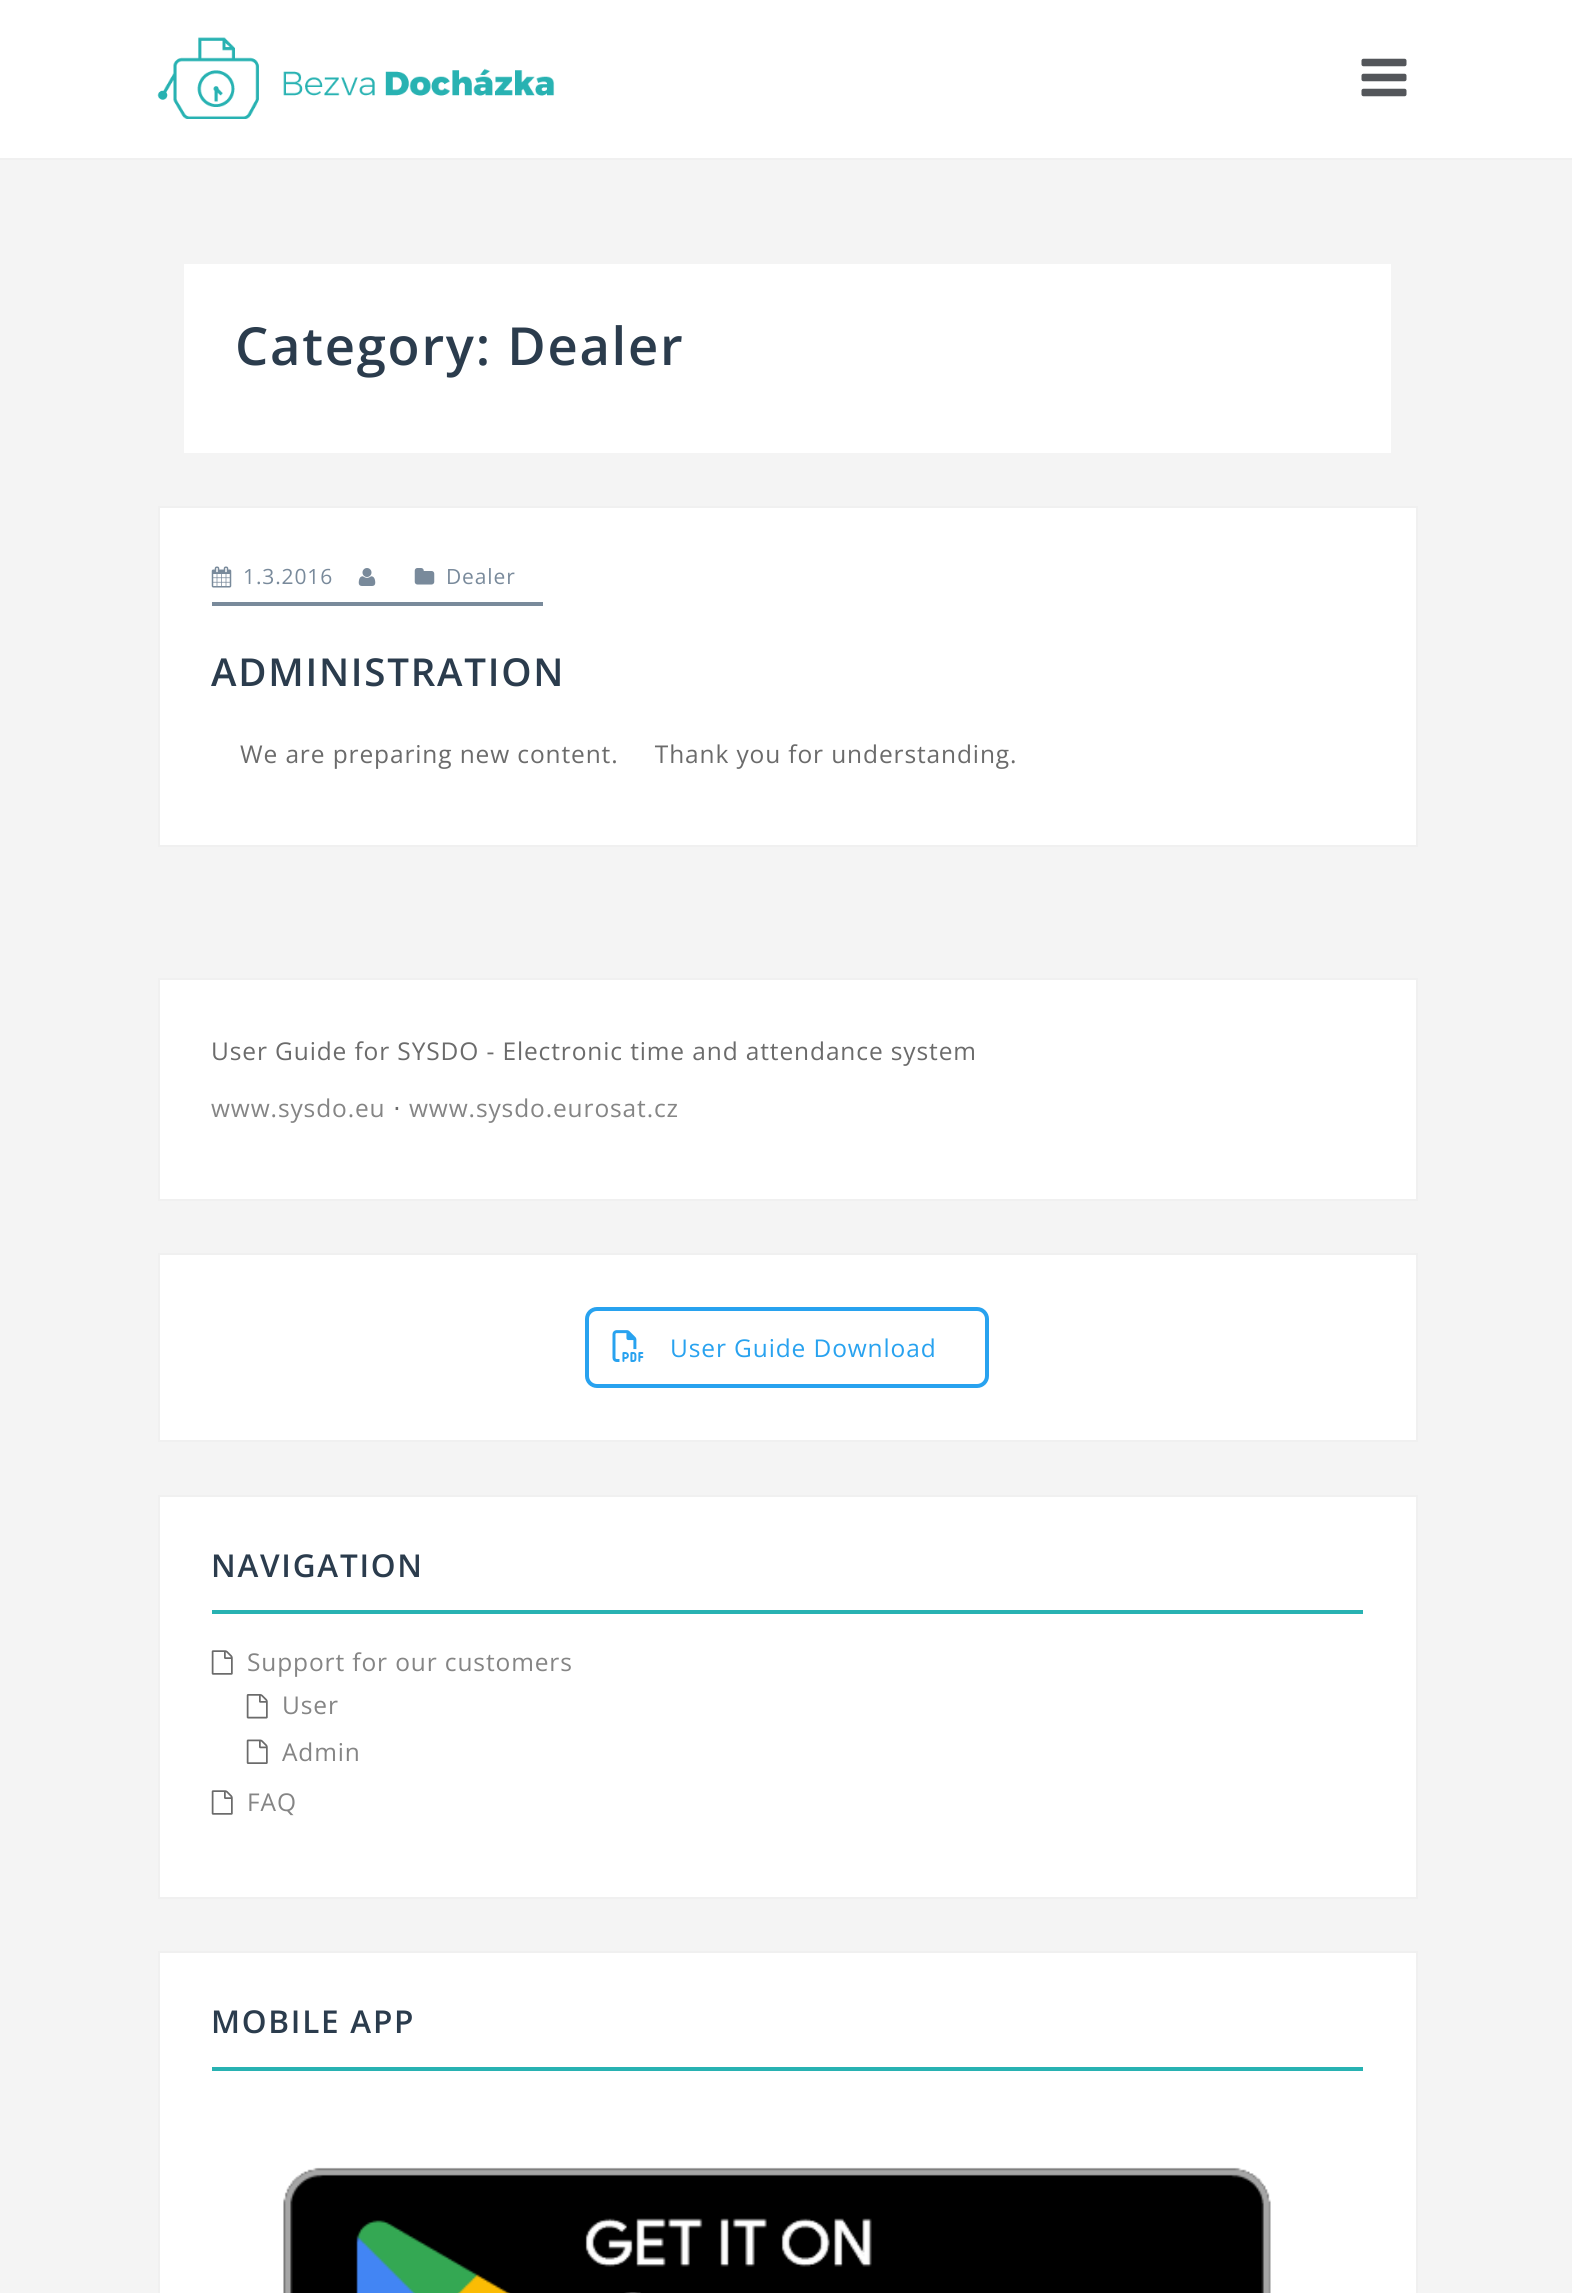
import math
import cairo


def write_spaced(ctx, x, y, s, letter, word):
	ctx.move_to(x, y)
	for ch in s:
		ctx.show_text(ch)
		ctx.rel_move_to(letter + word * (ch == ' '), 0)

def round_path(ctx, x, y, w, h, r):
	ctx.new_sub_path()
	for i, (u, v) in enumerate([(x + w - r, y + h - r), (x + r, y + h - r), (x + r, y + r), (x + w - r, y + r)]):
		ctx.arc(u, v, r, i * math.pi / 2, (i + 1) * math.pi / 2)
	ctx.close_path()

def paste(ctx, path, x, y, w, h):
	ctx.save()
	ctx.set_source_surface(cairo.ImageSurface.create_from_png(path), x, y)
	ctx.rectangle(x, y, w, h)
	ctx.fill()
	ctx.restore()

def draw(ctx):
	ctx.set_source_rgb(0.957, 0.957, 0.957)
	ctx.paint()
	ctx.set_source_rgb(1, 1, 1)
	ctx.rectangle(0, 0, 1572, 158)
	ctx.fill()
	ctx.set_source_rgb(0.941, 0.941, 0.941)
	ctx.rectangle(0, 158, 1572, 2)
	ctx.fill()
	paste(ctx, 'media/1.png', 157, 37, 398, 82)
	paste(ctx, 'media/2.png', 1361, 58, 46, 39)
	ctx.set_source_rgb(1, 1, 1)
	ctx.rectangle(184, 264, 1207, 189)
	ctx.fill()
	ctx.select_font_face('Open Sans SemiBold')
	ctx.set_font_size(52.5)
	ctx.set_source_rgb(0.169, 0.235, 0.302)
	write_spaced(ctx, 235, 365, 'Category: Dealer', 1.75, 0)
	ctx.set_source_rgb(1, 1, 1)
	ctx.rectangle(159, 507, 1258, 339)
	ctx.fill_preserve()
	ctx.set_source_rgb(0.941, 0.941, 0.941)
	ctx.stroke()
	ctx.set_source_rgb(0.475, 0.541, 0.608)
	ctx.rectangle(212, 602, 331, 4)
	ctx.fill()
	paste(ctx, 'media/3.png', 211, 566, 21, 22)
	ctx.select_font_face('Open Sans')
	ctx.set_font_size(21)
	write_spaced(ctx, 243, 584, '1.3.2016', 0.88, 0)
	paste(ctx, 'media/4.png', 358, 568, 18, 18)
	paste(ctx, 'media/5.png', 414, 568, 21, 17)
	write_spaced(ctx, 446, 584, 'Dealer', 0.88, 0)
	ctx.select_font_face('Open Sans SemiBold')
	ctx.set_font_size(38.5)
	ctx.set_source_rgb(0.169, 0.235, 0.302)
	write_spaced(ctx, 211, 686, 'ADMINISTRATION', 1.75, 0)
	ctx.select_font_face('Open Sans')
	ctx.set_font_size(24.5)
	ctx.set_source_rgb(0.42, 0.42, 0.42)
	write_spaced(ctx, 240, 763, 'We are preparing new content.     Thank you for understanding.', 0.88, 0)
	ctx.set_source_rgb(1, 1, 1)
	ctx.rectangle(159, 979, 1258, 221)
	ctx.fill_preserve()
	ctx.set_source_rgb(0.941, 0.941, 0.941)
	ctx.stroke()
	ctx.set_source_rgb(0.42, 0.42, 0.42)
	write_spaced(ctx, 211, 1060, 'User Guide for SYSDO - Electronic time and attendance system', 0.88, 0)
	ctx.set_source_rgb(0.522, 0.522, 0.522)
	write_spaced(ctx, 211, 1117, 'www.sysdo.eu', 0.88, 0)
	ctx.select_font_face('DejaVu Sans')
	ctx.set_source_rgb(0.42, 0.42, 0.42)
	write_spaced(ctx, 393, 1117, '⋅', 0.88, 0)
	ctx.select_font_face('Open Sans')
	ctx.set_source_rgb(0.522, 0.522, 0.522)
	write_spaced(ctx, 409, 1117, 'www.sysdo.eurosat.cz', 0.88, 0)
	ctx.set_source_rgb(1, 1, 1)
	ctx.rectangle(159, 1254, 1258, 187)
	ctx.fill_preserve()
	ctx.set_source_rgb(0.941, 0.941, 0.941)
	ctx.stroke()
	round_path(ctx, 587, 1309, 400, 77, 10)
	ctx.set_source_rgb(0.157, 0.635, 0.937)
	ctx.set_line_width(4)
	ctx.stroke()
	paste(ctx, 'media/6.png', 612, 1330, 32, 32)
	write_spaced(ctx, 670, 1357, 'User Guide Download', 0.88, 0)
	ctx.set_source_rgb(1, 1, 1)
	ctx.rectangle(159, 1496, 1258, 402)
	ctx.fill_preserve()
	ctx.set_source_rgb(0.941, 0.941, 0.941)
	ctx.set_line_width(2)
	ctx.stroke()
	ctx.set_source_rgb(0.157, 0.698, 0.698)
	ctx.rectangle(212, 1610, 1151, 4)
	ctx.fill()
	ctx.select_font_face('Open Sans SemiBold')
	ctx.set_font_size(31.5)
	ctx.set_source_rgb(0.169, 0.235, 0.302)
	write_spaced(ctx, 211, 1577, 'NAVIGATION', 1.75, 0)
	paste(ctx, 'media/7.png', 211, 1650, 22, 25)
	ctx.select_font_face('Open Sans')
	ctx.set_font_size(24.5)
	ctx.set_source_rgb(0.522, 0.522, 0.522)
	write_spaced(ctx, 247, 1671, 'Support for our customers', 0.88, 0)
	paste(ctx, 'media/8.png', 246, 1694, 22, 25)
	write_spaced(ctx, 282, 1714, 'User', 0.88, 0)
	paste(ctx, 'media/9.png', 246, 1739, 22, 25)
	write_spaced(ctx, 282, 1761, 'Admin', 0.88, 0)
	paste(ctx, 'media/7.png', 211, 1790, 22, 25)
	write_spaced(ctx, 247, 1811, 'FAQ', 0.88, 0)
	ctx.set_source_rgb(1, 1, 1)
	ctx.rectangle(159, 1952, 1258, 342)
	ctx.fill_preserve()
	ctx.set_source_rgb(0.941, 0.941, 0.941)
	ctx.stroke()
	ctx.set_source_rgb(0.157, 0.698, 0.698)
	ctx.rectangle(212, 2067, 1151, 4)
	ctx.fill()
	ctx.select_font_face('Open Sans SemiBold')
	ctx.set_font_size(31.5)
	ctx.set_source_rgb(0.169, 0.235, 0.302)
	write_spaced(ctx, 211, 2033, 'MOBILE APP', 1.75, 0)
	paste(ctx, 'media/10.png', 283, 2167, 988, 126)


surface = cairo.ImageSurface(cairo.FORMAT_RGB24, 1572, 2293)
ctx = cairo.Context(surface)
options = cairo.FontOptions()
options.set_hint_metrics(cairo.HINT_METRICS_OFF)
options.set_hint_style(cairo.HINT_STYLE_NONE)
ctx.set_font_options(options)
ctx.set_miter_limit(4)
draw(ctx)
surface.write_to_png('image.png')
